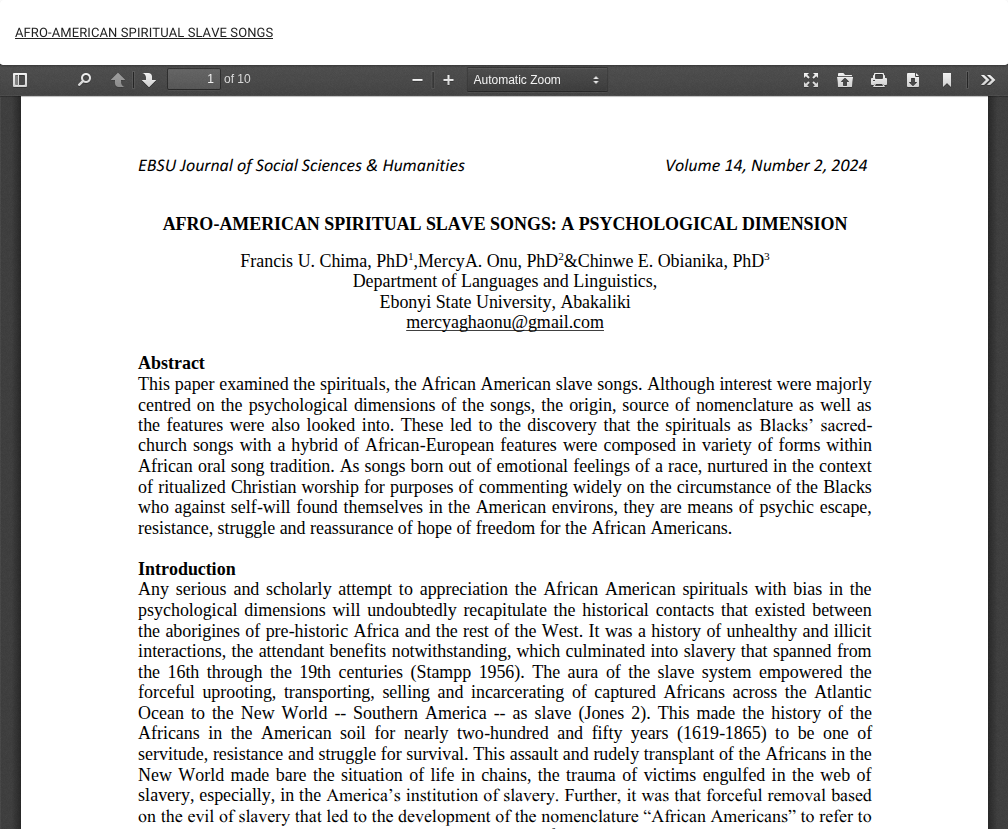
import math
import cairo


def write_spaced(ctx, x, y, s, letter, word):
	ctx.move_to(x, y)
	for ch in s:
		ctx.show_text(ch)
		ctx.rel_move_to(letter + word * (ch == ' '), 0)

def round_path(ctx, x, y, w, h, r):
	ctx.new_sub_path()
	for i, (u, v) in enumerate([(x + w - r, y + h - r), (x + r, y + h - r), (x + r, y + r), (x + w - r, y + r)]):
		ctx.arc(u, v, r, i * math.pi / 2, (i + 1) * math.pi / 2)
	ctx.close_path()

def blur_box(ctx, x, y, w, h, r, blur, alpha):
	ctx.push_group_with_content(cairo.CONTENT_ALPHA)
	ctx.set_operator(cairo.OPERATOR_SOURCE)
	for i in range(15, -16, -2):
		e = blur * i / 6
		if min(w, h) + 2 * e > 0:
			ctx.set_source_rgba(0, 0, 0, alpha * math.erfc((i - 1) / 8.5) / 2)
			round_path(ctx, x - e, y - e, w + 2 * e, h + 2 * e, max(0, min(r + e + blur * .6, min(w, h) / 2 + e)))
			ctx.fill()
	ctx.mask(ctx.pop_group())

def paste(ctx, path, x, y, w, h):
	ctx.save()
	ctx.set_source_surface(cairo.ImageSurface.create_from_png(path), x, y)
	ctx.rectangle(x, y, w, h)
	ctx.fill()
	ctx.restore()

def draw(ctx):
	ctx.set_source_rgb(1, 1, 1)
	ctx.paint()
	paste(ctx, 'media/1.png', 0, 64, 1008, 765)
	ctx.set_source_rgb(0, 0, 0)
	blur_box(ctx, 0, 1, 1008, 65, 3, 1, 0.3)
	ctx.set_source_rgb(1, 1, 1)
	round_path(ctx, 0, 0, 1008, 65, 3)
	ctx.fill()
	ctx.select_font_face('Roboto')
	ctx.set_font_size(13)
	ctx.set_source_rgb(0.129, 0.129, 0.129)
	write_spaced(ctx, 15, 37, 'AFRO-AMERICAN SPIRITUAL SLAVE SONGS', 0.1, 0)
	ctx.rectangle(15, 38, 258, 1)
	ctx.fill()


surface = cairo.ImageSurface(cairo.FORMAT_RGB24, 1008, 829)
ctx = cairo.Context(surface)
options = cairo.FontOptions()
options.set_hint_metrics(cairo.HINT_METRICS_OFF)
options.set_hint_style(cairo.HINT_STYLE_NONE)
ctx.set_font_options(options)
ctx.set_miter_limit(4)
draw(ctx)
surface.write_to_png('image.png')
